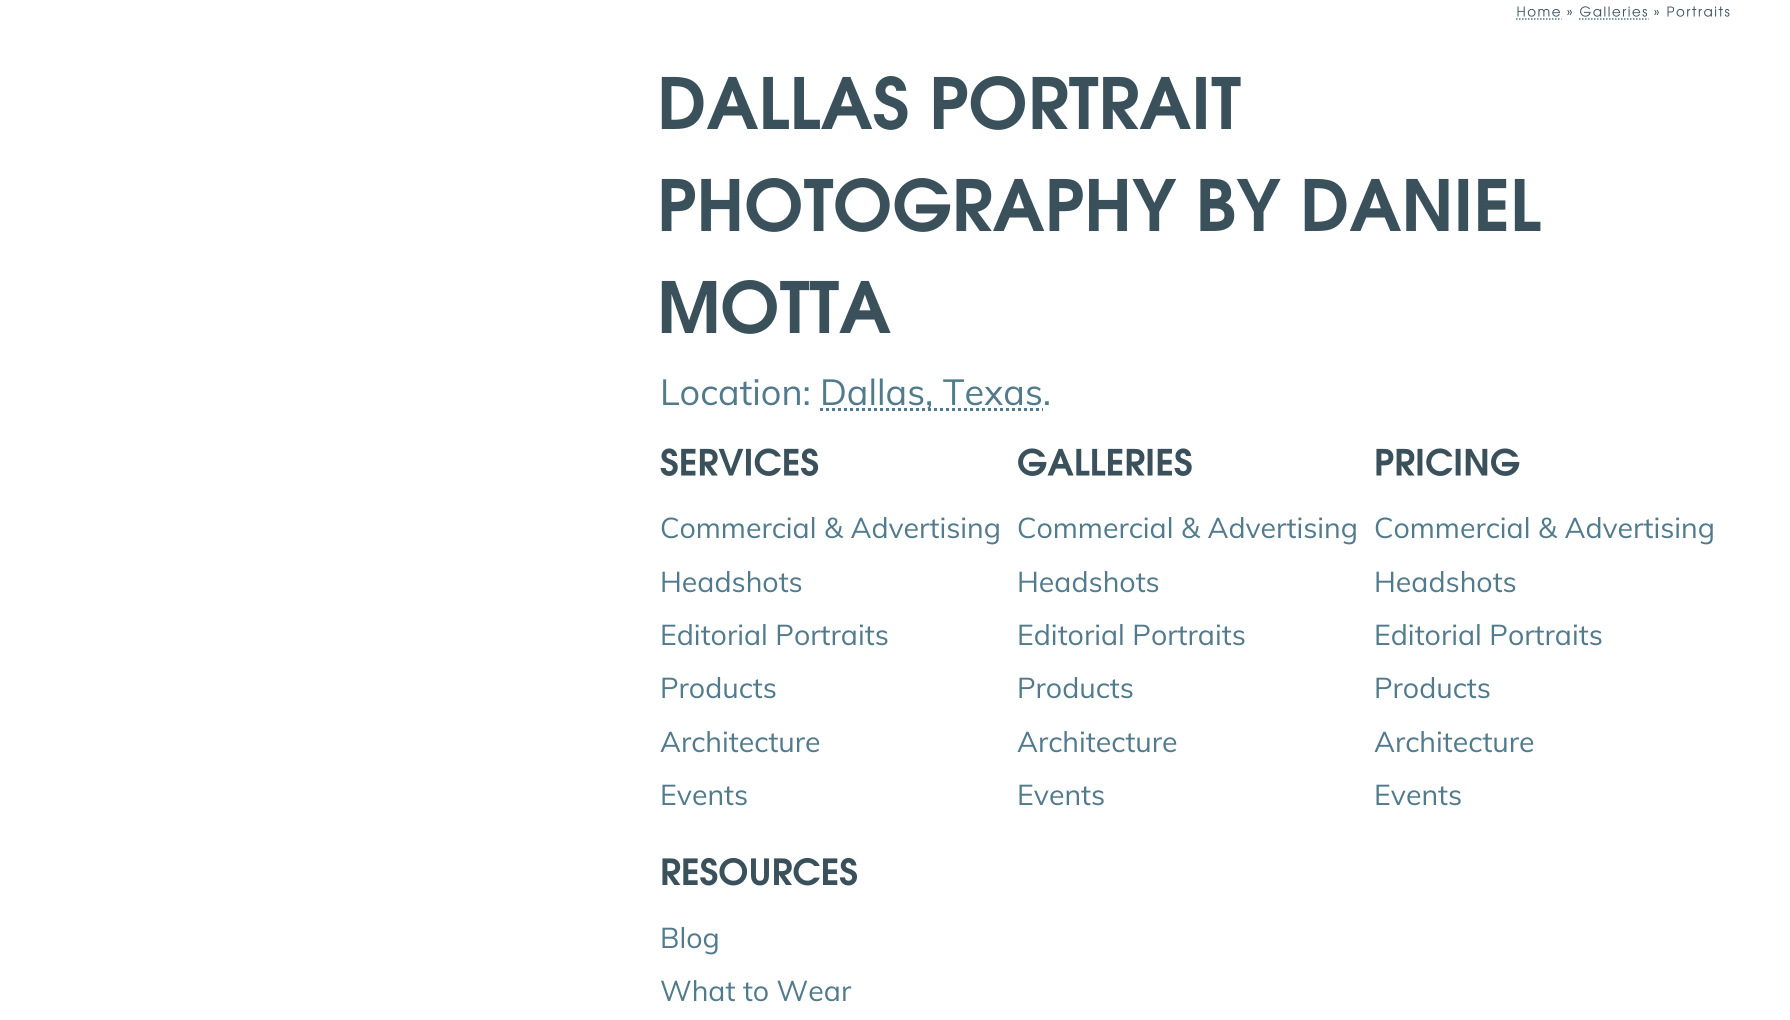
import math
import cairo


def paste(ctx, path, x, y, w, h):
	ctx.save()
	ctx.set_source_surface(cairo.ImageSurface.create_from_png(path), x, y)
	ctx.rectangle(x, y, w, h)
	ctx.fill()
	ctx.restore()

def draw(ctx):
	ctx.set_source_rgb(1, 1, 1)
	ctx.paint()
	paste(ctx, 'media/1.png', 1517, 6, 43, 11)
	paste(ctx, 'media/2.png', 1567, 9, 5, 7)
	paste(ctx, 'media/3.png', 1580, 6, 68, 11)
	paste(ctx, 'media/2.png', 1654, 9, 5, 7)
	paste(ctx, 'media/4.png', 1667, 6, 63, 11)
	ctx.new_path()
	ctx.move_to(1516, 19)
	ctx.line_to(1561.5, 19)
	ctx.set_source_rgb(0.318, 0.478, 0.549)
	ctx.set_line_width(1.5)
	ctx.set_dash([1.5, 1.5])
	ctx.stroke()
	ctx.new_path()
	ctx.move_to(1579, 19)
	ctx.line_to(1648.5, 19)
	ctx.stroke()
	paste(ctx, 'media/5.png', 661, 76, 580, 54)
	paste(ctx, 'media/6.png', 661, 178, 880, 54)
	paste(ctx, 'media/7.png', 661, 280, 230, 54)
	ctx.select_font_face('Muli')
	ctx.set_font_size(36)
	ctx.move_to(660, 405)
	ctx.show_text('Location:')
	ctx.new_path()
	ctx.move_to(820, 409.5)
	ctx.line_to(1043, 409.5)
	ctx.set_line_width(3)
	ctx.set_dash([3, 3])
	ctx.stroke()
	ctx.move_to(820, 405)
	ctx.show_text('Dallas, Texas.')
	paste(ctx, 'media/8.png', 660, 448, 159, 28)
	ctx.set_font_size(28.5)
	for x, y, s in [
		(660, 538, 'Commercial & Advertising'),
		(660, 592, 'Headshots'),
		(660, 645, 'Editorial Portraits'),
		(660, 698, 'Products'),
		(660, 752, 'Architecture'),
		(660, 805, 'Events'),
	]:
		ctx.move_to(x, y)
		ctx.show_text(s)
	paste(ctx, 'media/9.png', 1018, 448, 174, 28)
	for x, y, s in [
		(1017, 538, 'Commercial & Advertising'),
		(1017, 592, 'Headshots'),
		(1017, 645, 'Editorial Portraits'),
		(1017, 698, 'Products'),
		(1017, 752, 'Architecture'),
		(1017, 805, 'Events'),
	]:
		ctx.move_to(x, y)
		ctx.show_text(s)
	paste(ctx, 'media/10.png', 1376, 448, 144, 28)
	for x, y, s in [
		(1374, 538, 'Commercial & Advertising'),
		(1374, 592, 'Headshots'),
		(1374, 645, 'Editorial Portraits'),
		(1374, 698, 'Products'),
		(1374, 752, 'Architecture'),
		(1374, 805, 'Events'),
	]:
		ctx.move_to(x, y)
		ctx.show_text(s)
	paste(ctx, 'media/11.png', 662, 857, 195, 29)
	ctx.move_to(660, 948)
	ctx.show_text('Blog')
	ctx.move_to(660, 1001)
	ctx.show_text('What to Wear')


surface = cairo.ImageSurface(cairo.FORMAT_RGB24, 1790, 1020)
ctx = cairo.Context(surface)
options = cairo.FontOptions()
options.set_hint_metrics(cairo.HINT_METRICS_OFF)
options.set_hint_style(cairo.HINT_STYLE_NONE)
ctx.set_font_options(options)
ctx.set_miter_limit(4)
draw(ctx)
surface.write_to_png('image.png')
